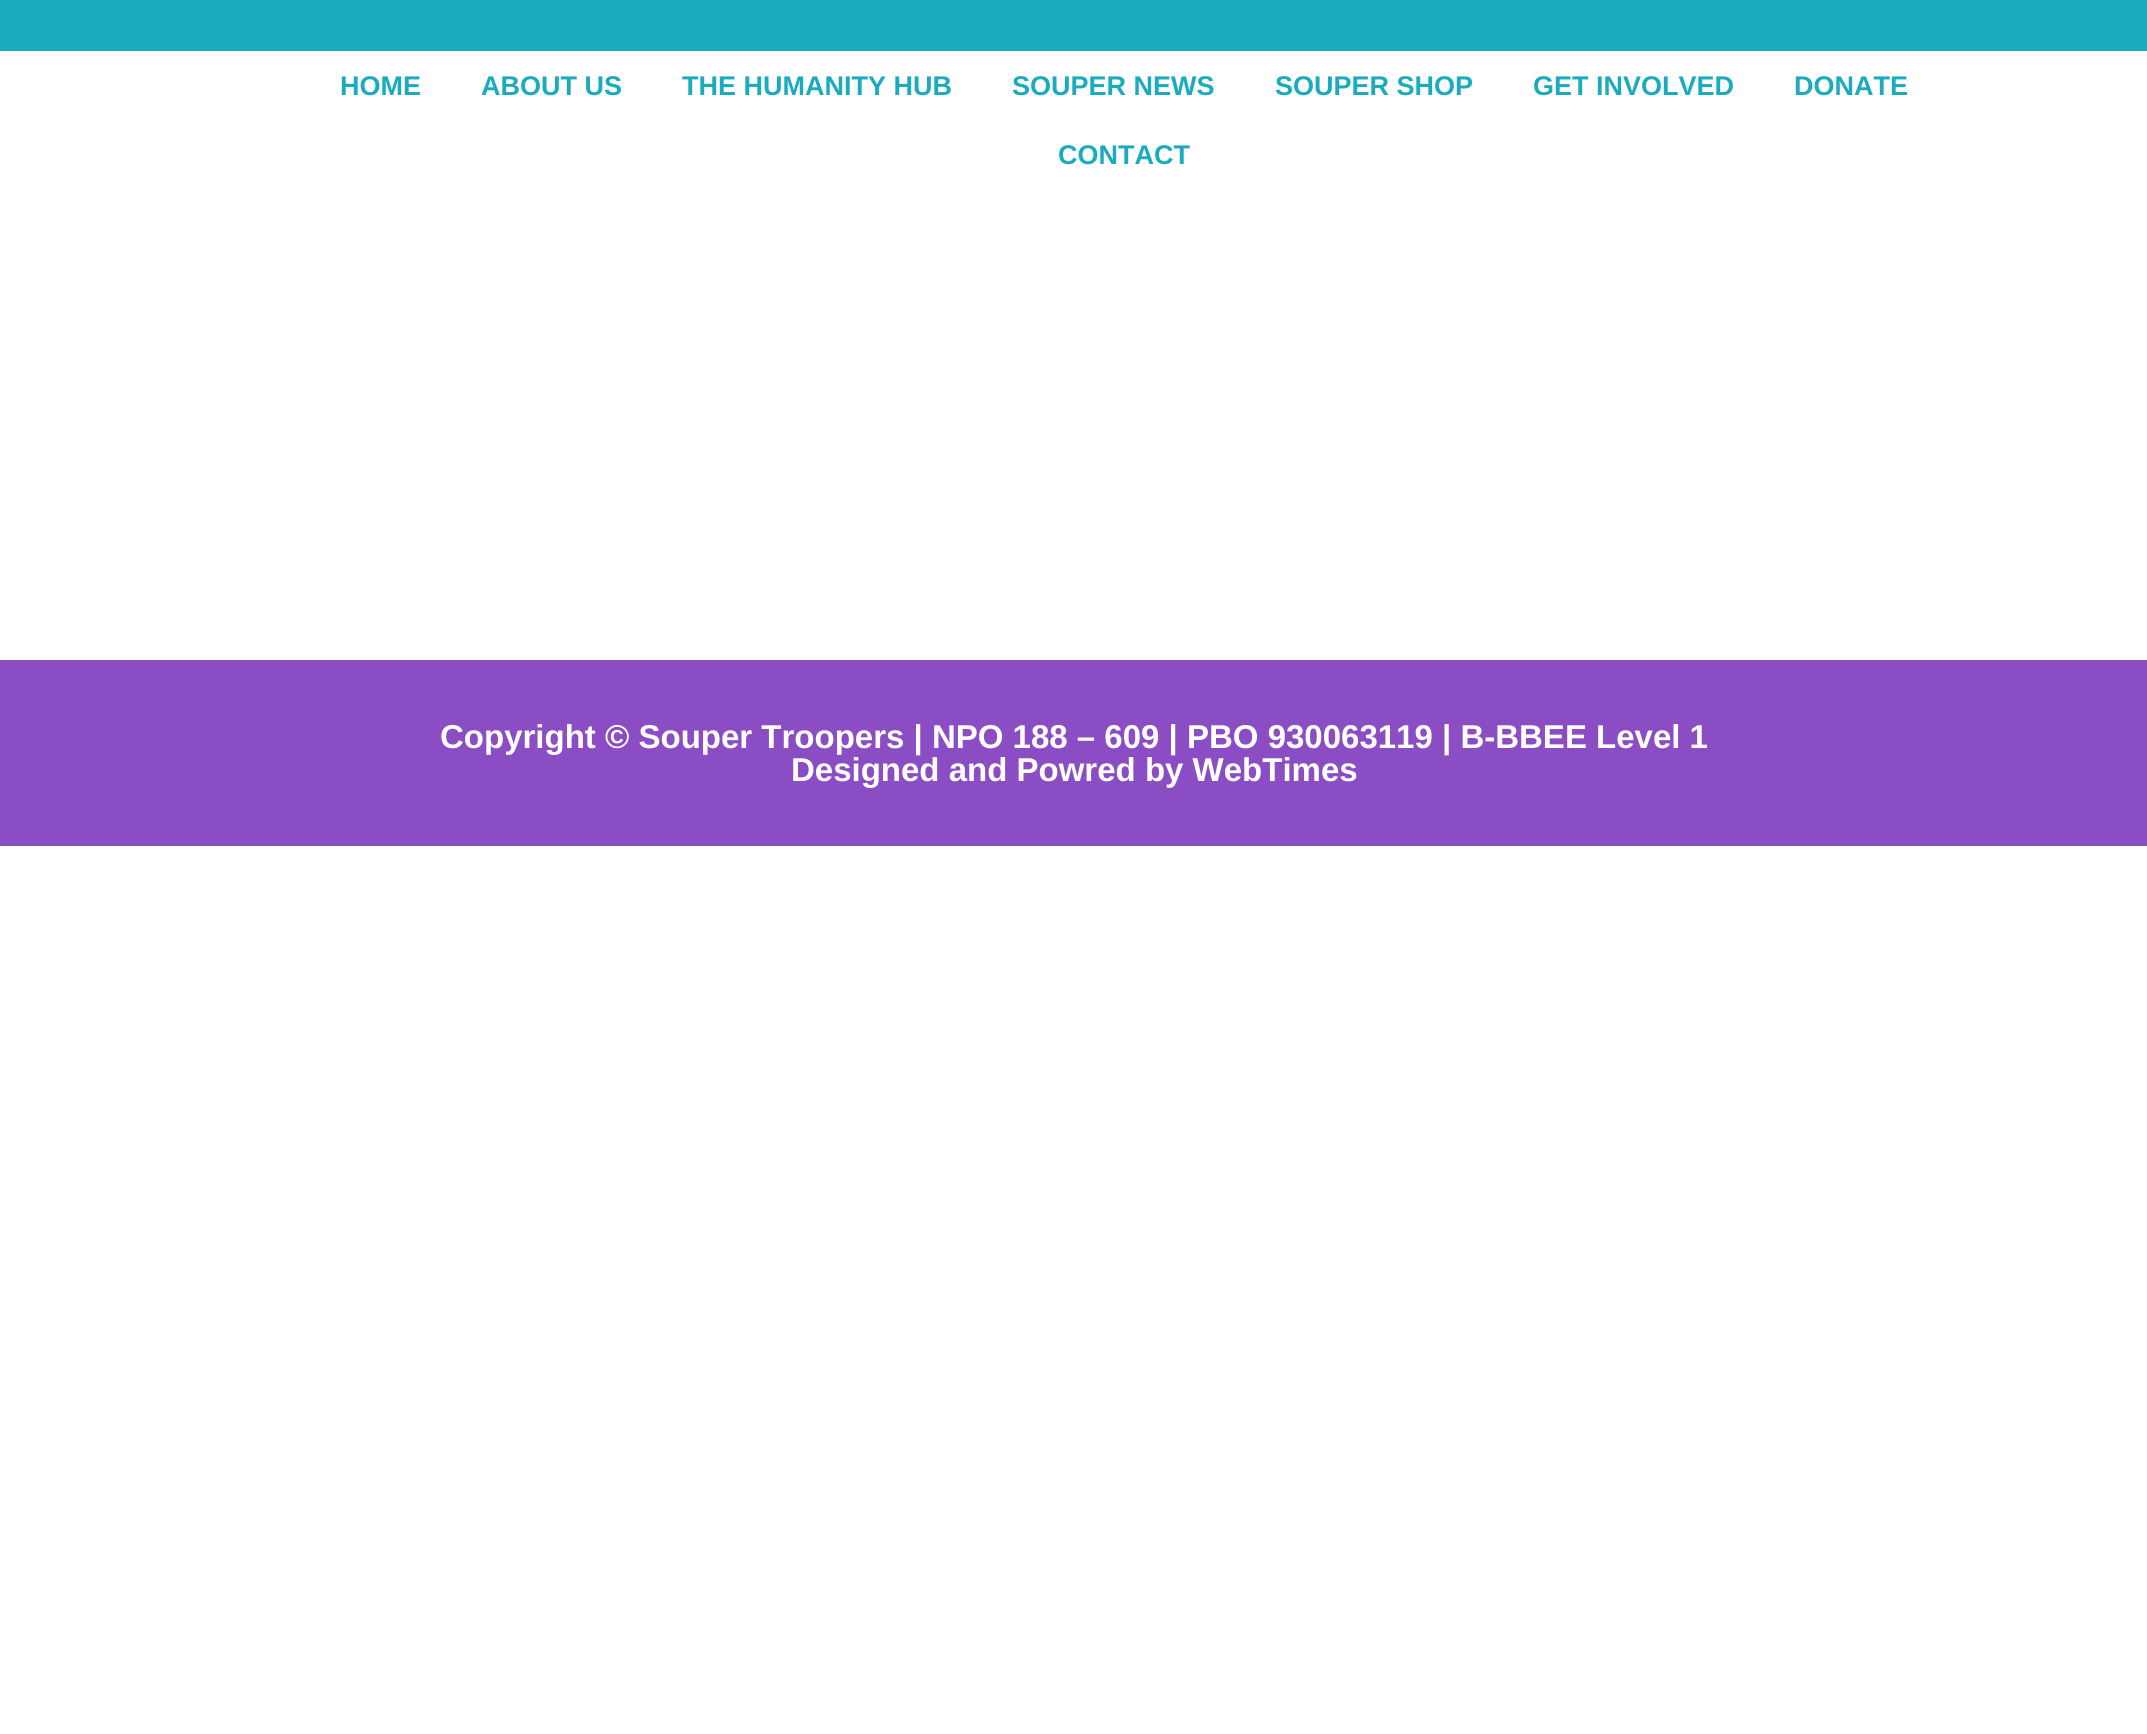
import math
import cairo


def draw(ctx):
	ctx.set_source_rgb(1, 1, 1)
	ctx.paint()
	ctx.set_source_rgb(0.106, 0.671, 0.745)
	ctx.rectangle(0, 0, 2147, 51)
	ctx.fill()
	ctx.select_font_face('Liberation Sans', cairo.FONT_SLANT_NORMAL, cairo.FONT_WEIGHT_BOLD)
	ctx.set_font_size(27)
	for x, y, s in [
		(340, 95, 'HOME'),
		(481, 95, 'ABOUT US'),
		(682, 95, 'THE HUMANITY HUB'),
		(1012, 95, 'SOUPER NEWS'),
		(1275, 95, 'SOUPER SHOP'),
		(1533, 95, 'GET INVOLVED'),
		(1794, 95, 'DONATE'),
		(1058, 164, 'CONTACT'),
	]:
		ctx.move_to(x, y)
		ctx.show_text(s)
	ctx.set_source_rgb(0.545, 0.302, 0.769)
	ctx.rectangle(0, 660, 2147, 186)
	ctx.fill()
	ctx.set_font_size(33)
	ctx.set_source_rgb(1, 1, 1)
	ctx.move_to(440, 748)
	ctx.show_text('Copyright © Souper Troopers | NPO 188 – 609 | PBO 930063119 | B-BBEE Level 1')
	ctx.move_to(791, 781)
	ctx.show_text('Designed and Powred by WebTimes')


surface = cairo.ImageSurface(cairo.FORMAT_RGB24, 2147, 1734)
ctx = cairo.Context(surface)
options = cairo.FontOptions()
options.set_hint_metrics(cairo.HINT_METRICS_OFF)
options.set_hint_style(cairo.HINT_STYLE_NONE)
ctx.set_font_options(options)
ctx.set_miter_limit(4)
draw(ctx)
surface.write_to_png('image.png')
